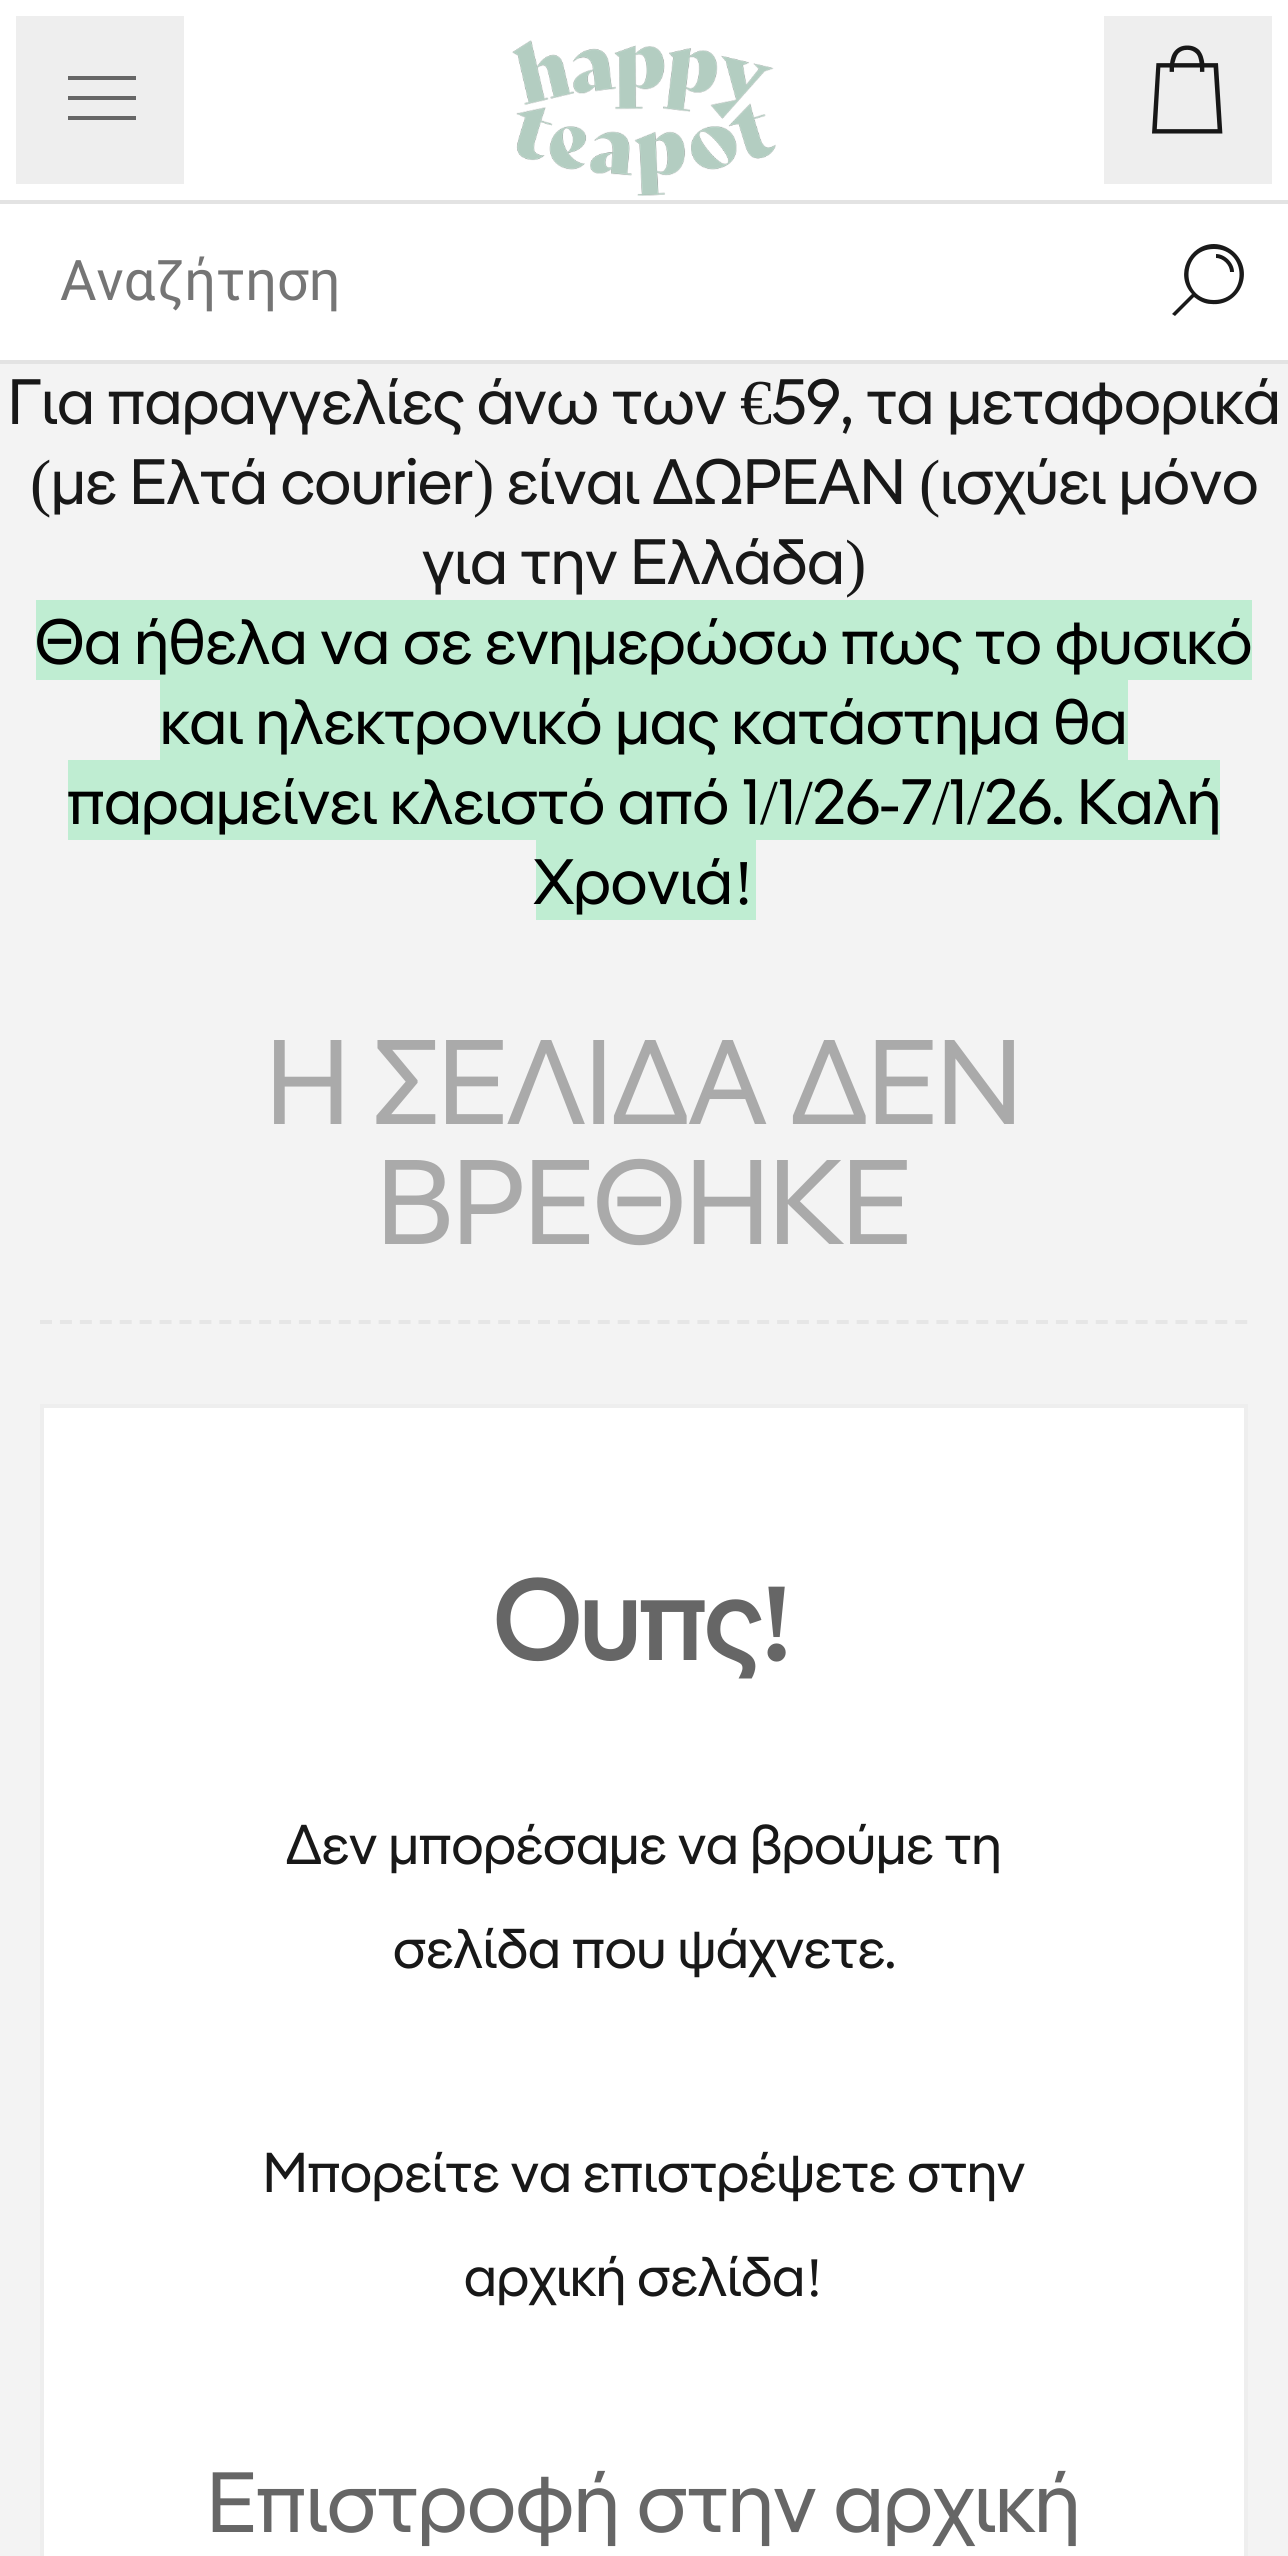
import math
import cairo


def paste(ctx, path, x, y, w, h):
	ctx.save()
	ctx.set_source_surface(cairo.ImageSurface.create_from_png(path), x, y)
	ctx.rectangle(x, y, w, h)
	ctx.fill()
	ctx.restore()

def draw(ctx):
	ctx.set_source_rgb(0.953, 0.953, 0.953)
	ctx.paint()
	ctx.set_source_rgb(0.933, 0.933, 0.933)
	ctx.rectangle(8, 8, 184, 184)
	ctx.fill_preserve()
	ctx.set_source_rgb(1, 1, 1)
	ctx.set_line_width(16)
	ctx.stroke()
	ctx.set_source_rgb(0.4, 0.4, 0.4)
	ctx.rectangle(68, 76, 68, 4)
	ctx.rectangle(68, 96, 68, 4)
	ctx.rectangle(68, 116, 68, 4)
	ctx.fill()
	ctx.set_source_rgb(0.933, 0.933, 0.933)
	ctx.rectangle(1096, 8, 184, 184)
	ctx.fill_preserve()
	ctx.set_source_rgb(1, 1, 1)
	ctx.stroke()
	paste(ctx, 'media/1.png', 1152, 45, 71, 89)
	ctx.set_source_rgb(0.89, 0.89, 0.89)
	ctx.rectangle(0, 200, 1288, 4)
	ctx.fill()
	ctx.set_source_rgb(1, 1, 1)
	ctx.rectangle(200, 0, 888, 200)
	ctx.fill()
	paste(ctx, 'media/2.png', 512, 40, 264, 156)
	ctx.rectangle(0, 204, 1288, 156)
	ctx.fill()
	ctx.set_source_rgb(0.89, 0.89, 0.89)
	ctx.rectangle(0, 360, 1288, 4)
	ctx.fill()
	ctx.select_font_face('Roboto')
	ctx.set_font_size(56)
	ctx.set_source_rgb(0.459, 0.459, 0.459)
	ctx.move_to(60, 300)
	ctx.show_text('Αναζήτηση')
	ctx.set_source_rgb(0.102, 0.102, 0.102)
	ctx.new_path()
	ctx.move_to(1214, 244)
	ctx.curve_to(1189, 244, 1174, 275, 1192, 294)
	ctx.line_to(1172, 314)
	ctx.line_to(1175, 316)
	ctx.line_to(1194, 297)
	ctx.curve_to(1199, 301, 1205, 304, 1211, 304)
	ctx.curve_to(1239, 307, 1255, 273, 1235, 253)
	ctx.curve_to(1230, 248, 1222, 244, 1214, 244)
	ctx.close_path()
	ctx.move_to(1214, 300)
	ctx.curve_to(1180, 300, 1180, 249, 1214, 249)
	ctx.curve_to(1248, 249, 1248, 300, 1214, 300)
	ctx.close_path()
	ctx.move_to(1216, 254)
	ctx.line_to(1216, 258)
	ctx.curve_to(1223, 258, 1230, 265, 1230, 272)
	ctx.line_to(1234, 272)
	ctx.curve_to(1234, 263, 1225, 254, 1216, 254)
	ctx.close_path()
	ctx.fill()
	ctx.select_font_face('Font')
	ctx.set_font_size(64)
	ctx.set_source_rgb(0.094, 0.094, 0.094)
	ctx.move_to(8, 424)
	ctx.show_text('Για παραγγελίες άνω των')
	ctx.select_font_face('Liberation Serif')
	ctx.move_to(740, 424)
	ctx.show_text('€')
	ctx.select_font_face('Font')
	ctx.move_to(772, 424)
	ctx.show_text('59, τα μεταφορικά')
	ctx.select_font_face('Liberation Serif')
	ctx.move_to(30, 504)
	ctx.show_text('(')
	ctx.select_font_face('Font')
	ctx.move_to(51, 504)
	ctx.show_text('με Ελτά courier')
	ctx.select_font_face('Liberation Serif')
	ctx.move_to(473, 504)
	ctx.show_text(')')
	ctx.select_font_face('Font')
	ctx.move_to(507, 504)
	ctx.show_text('είναι ΔΩΡΕΑΝ')
	ctx.select_font_face('Liberation Serif')
	ctx.move_to(919, 504)
	ctx.show_text('(')
	ctx.select_font_face('Font')
	ctx.move_to(940, 504)
	ctx.show_text('ισχύει μόνο')
	ctx.move_to(422, 584)
	ctx.show_text('για την Ελλάδα')
	ctx.select_font_face('Liberation Serif')
	ctx.move_to(845, 584)
	ctx.show_text(')')
	ctx.set_source_rgb(0.749, 0.929, 0.824)
	ctx.rectangle(36, 600, 1216, 80)
	ctx.fill()
	ctx.select_font_face('Font')
	ctx.set_source_rgb(0, 0, 0)
	ctx.move_to(35, 664)
	ctx.show_text('Θα ήθελα να σε ενημερώσω πως το φυσικό')
	ctx.set_source_rgb(0.749, 0.929, 0.824)
	ctx.rectangle(160, 680, 968, 80)
	ctx.fill()
	ctx.set_source_rgb(0, 0, 0)
	ctx.move_to(160, 744)
	ctx.show_text('και ηλεκτρονικό μας κατάστημα θα')
	ctx.set_source_rgb(0.749, 0.929, 0.824)
	ctx.rectangle(68, 760, 1152, 80)
	ctx.fill()
	ctx.set_source_rgb(0, 0, 0)
	ctx.move_to(67, 824)
	ctx.show_text('παραμείνει κλειστό από 1')
	ctx.select_font_face('Liberation Serif')
	ctx.move_to(760, 824)
	ctx.show_text('/')
	ctx.select_font_face('Font')
	ctx.move_to(778, 824)
	ctx.show_text('1')
	ctx.select_font_face('Liberation Serif')
	ctx.move_to(795, 824)
	ctx.show_text('/')
	ctx.select_font_face('Font')
	ctx.move_to(813, 824)
	ctx.show_text('26')
	ctx.select_font_face('Liberation Serif')
	ctx.move_to(879, 824)
	ctx.show_text('-')
	ctx.select_font_face('Font')
	ctx.move_to(901, 824)
	ctx.show_text('7')
	ctx.select_font_face('Liberation Serif')
	ctx.move_to(932, 824)
	ctx.show_text('/')
	ctx.select_font_face('Font')
	ctx.move_to(949, 824)
	ctx.show_text('1')
	ctx.select_font_face('Liberation Serif')
	ctx.move_to(967, 824)
	ctx.show_text('/')
	ctx.select_font_face('Font')
	ctx.move_to(985, 824)
	ctx.show_text('26. Καλή')
	ctx.set_source_rgb(0.749, 0.929, 0.824)
	ctx.rectangle(536, 840, 220, 80)
	ctx.fill()
	ctx.set_source_rgb(0, 0, 0)
	ctx.move_to(534, 904)
	ctx.show_text('Χρονιά')
	ctx.select_font_face('Liberation Serif')
	ctx.move_to(733, 904)
	ctx.show_text('!')
	ctx.new_path()
	ctx.move_to(40, 1322)
	ctx.line_to(1248, 1322)
	ctx.set_source_rgb(0.902, 0.902, 0.902)
	ctx.set_line_width(4)
	ctx.set_dash([12, 7.92])
	ctx.stroke()
	ctx.select_font_face('Font')
	ctx.set_font_size(120)
	ctx.set_source_rgb(0.667, 0.667, 0.667)
	ctx.move_to(266, 1124)
	ctx.show_text('Η ΣΕΛΙΔΑ ΔΕΝ')
	ctx.move_to(377, 1244)
	ctx.show_text('ΒΡΕΘΗΚΕ')
	ctx.set_source_rgb(1, 1, 1)
	ctx.rectangle(42, 1406, 1204, 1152)
	ctx.fill_preserve()
	ctx.set_source_rgb(0.933, 0.933, 0.933)
	ctx.set_dash([])
	ctx.stroke()
	ctx.select_font_face('Font', cairo.FONT_SLANT_NORMAL, cairo.FONT_WEIGHT_BOLD)
	ctx.set_font_size(112)
	ctx.set_source_rgb(0.4, 0.4, 0.4)
	ctx.move_to(493, 1660)
	ctx.show_text('Ουπς')
	ctx.select_font_face('Liberation Serif', cairo.FONT_SLANT_NORMAL, cairo.FONT_WEIGHT_BOLD)
	ctx.move_to(758, 1660)
	ctx.show_text('!')
	ctx.select_font_face('Font')
	ctx.set_font_size(56)
	ctx.set_source_rgb(0.094, 0.094, 0.094)
	for x, y, s in [
		(286, 1864, 'Δεν μπορέσαμε να βρούμε τη'),
		(393, 1968, 'σελίδα που ψάχνετε.'),
		(263, 2192, 'Μπορείτε να επιστρέψετε στην'),
		(464, 2296, 'αρχική σελίδα'),
	]:
		ctx.move_to(x, y)
		ctx.show_text(s)
	ctx.select_font_face('Liberation Serif')
	ctx.move_to(805, 2296)
	ctx.show_text('!')
	ctx.select_font_face('Font')
	ctx.set_font_size(85.25)
	ctx.set_source_rgb(0.4, 0.4, 0.4)
	ctx.move_to(207, 2532)
	ctx.show_text('Επιστροφή στην αρχική')


surface = cairo.ImageSurface(cairo.FORMAT_RGB24, 1288, 2556)
ctx = cairo.Context(surface)
options = cairo.FontOptions()
options.set_hint_metrics(cairo.HINT_METRICS_OFF)
options.set_hint_style(cairo.HINT_STYLE_NONE)
ctx.set_font_options(options)
ctx.set_miter_limit(4)
draw(ctx)
surface.write_to_png('image.png')
